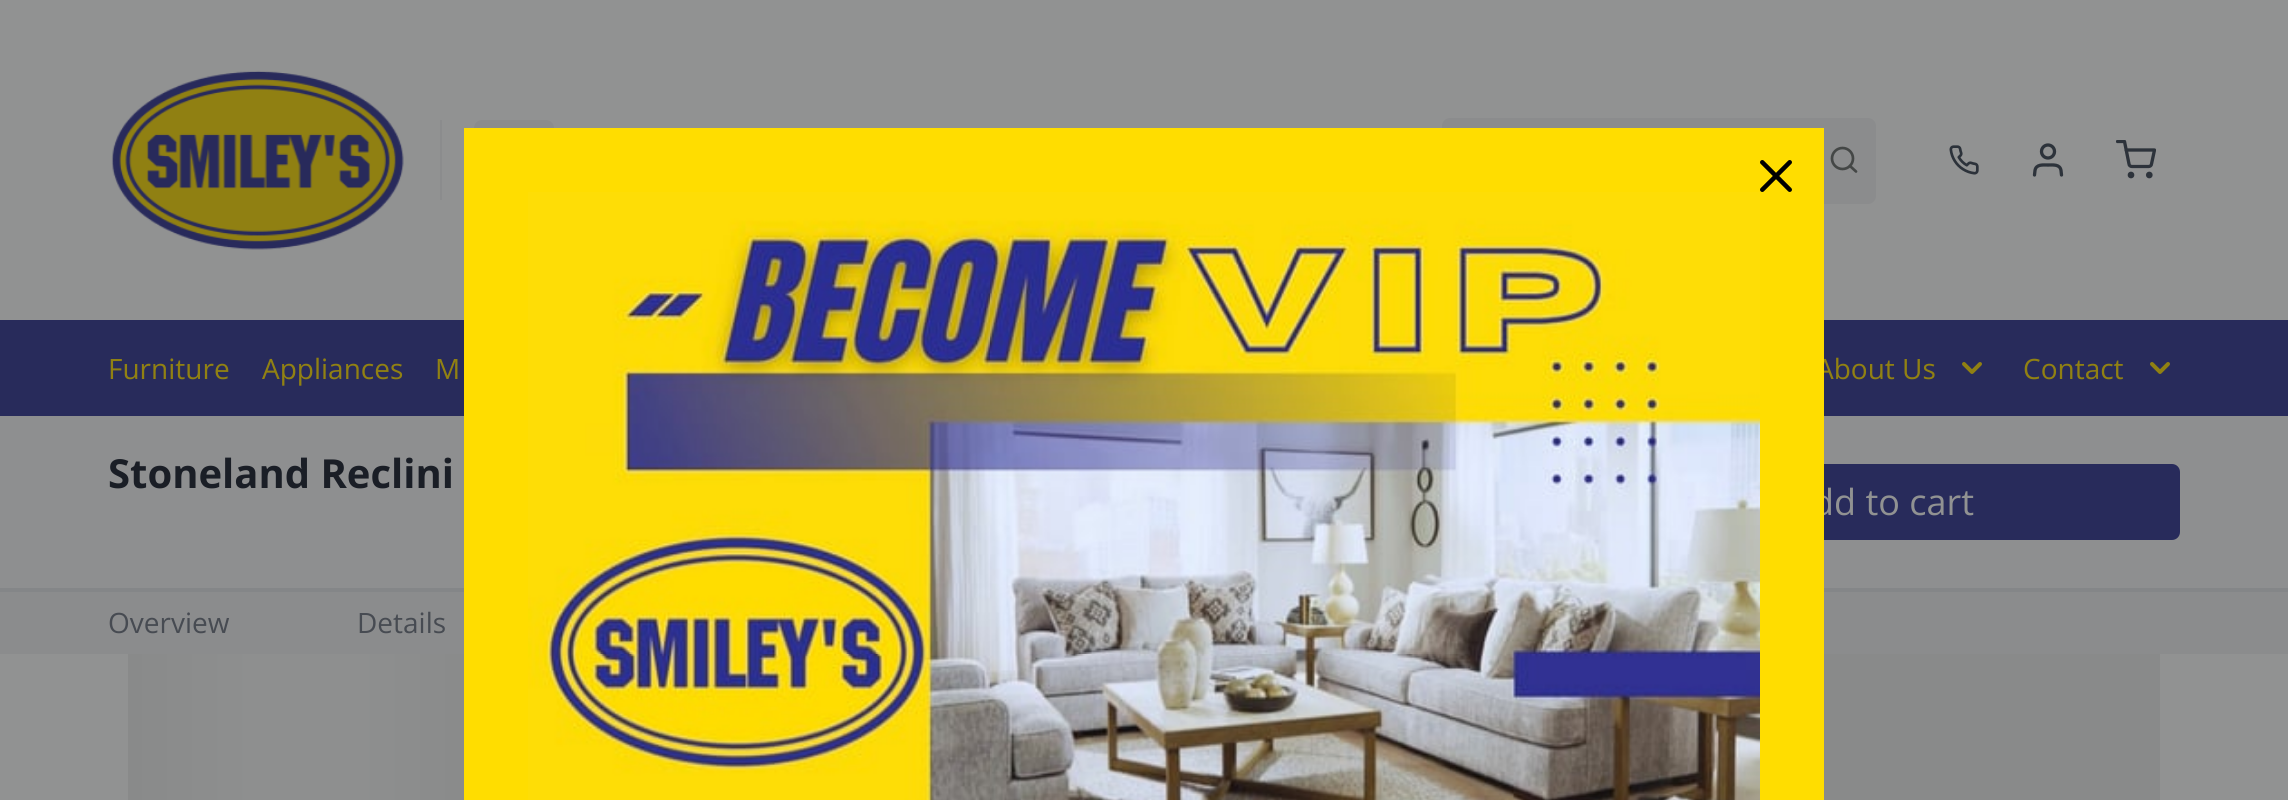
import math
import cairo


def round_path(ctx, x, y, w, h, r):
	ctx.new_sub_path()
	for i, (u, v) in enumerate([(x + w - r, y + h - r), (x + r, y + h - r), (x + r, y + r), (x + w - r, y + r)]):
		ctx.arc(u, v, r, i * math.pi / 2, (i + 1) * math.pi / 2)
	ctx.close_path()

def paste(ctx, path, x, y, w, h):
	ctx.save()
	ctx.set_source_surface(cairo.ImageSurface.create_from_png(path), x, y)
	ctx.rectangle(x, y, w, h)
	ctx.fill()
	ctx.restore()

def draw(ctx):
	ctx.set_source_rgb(0.569, 0.573, 0.573)
	ctx.paint()
	ctx.set_source_rgb(0.545, 0.549, 0.553)
	round_path(ctx, 474, 120, 80, 80, 8)
	ctx.fill()
	round_path(ctx, 1442, 118, 434, 86, 8)
	ctx.fill()
	ctx.set_source_rgb(0.157, 0.169, 0.357)
	ctx.rectangle(0, 320, 2288, 96)
	ctx.fill()
	ctx.select_font_face('Open Sans')
	ctx.set_font_size(28)
	ctx.set_source_rgb(0.569, 0.506, 0.071)
	ctx.move_to(1816, 379)
	ctx.show_text('About Us')
	ctx.set_source_rgb(0.557, 0.561, 0.565)
	ctx.rectangle(0, 416, 2288, 172)
	ctx.fill()
	ctx.set_source_rgb(0.157, 0.169, 0.357)
	round_path(ctx, 1526, 464, 654, 76, 8)
	ctx.fill()
	ctx.set_font_size(36)
	ctx.set_source_rgb(0.569, 0.573, 0.573)
	ctx.move_to(1812, 515)
	ctx.show_text('dd to cart')
	ctx.set_source_rgb(0.545, 0.549, 0.553)
	ctx.rectangle(0, 592, 2288, 62)
	ctx.fill()
	ctx.set_source_rgb(0.518, 0.525, 0.533)
	ctx.rectangle(0, 588, 2288, 4)
	ctx.fill()
	ctx.set_source_rgb(1, 0.867, 0)
	ctx.rectangle(464, 128, 1360, 672)
	ctx.fill()
	paste(ctx, 'media/1.png', 528, 192, 1232, 608)
	paste(ctx, 'media/2.png', 1760, 160, 32, 32)
	paste(ctx, 'media/3.png', 111, 70, 293, 180)
	ctx.set_source_rgb(0.545, 0.549, 0.553)
	ctx.rectangle(440, 120, 2, 80)
	ctx.fill()
	ctx.arc(1842.5, 158.5, 10.5, 0, 2 * math.pi)
	ctx.set_source_rgb(0.267, 0.278, 0.275)
	ctx.set_line_width(2.7)
	ctx.stroke()
	ctx.new_path()
	ctx.move_to(1856, 171.5)
	ctx.line_to(1850, 166)
	ctx.set_line_cap(cairo.LINE_CAP_ROUND)
	ctx.set_line_join(cairo.LINE_JOIN_ROUND)
	ctx.stroke()
	paste(ctx, 'media/4.png', 1949, 145, 30, 30)
	ctx.new_path()
	ctx.move_to(2061.5, 175)
	ctx.line_to(2061, 170.5)
	ctx.curve_to(2060, 164, 2053, 165, 2048, 165)
	ctx.curve_to(2043, 165, 2036, 164, 2035, 170.5)
	ctx.line_to(2034.5, 175)
	ctx.set_source_rgb(0.176, 0.2, 0.231)
	ctx.set_line_width(3.3)
	ctx.stroke()
	ctx.arc(2048, 151.5, 6.5, 0, 2 * math.pi)
	ctx.set_line_cap(cairo.LINE_CAP_BUTT)
	ctx.set_line_join(cairo.LINE_JOIN_MITER)
	ctx.stroke()
	ctx.arc(2131, 175, 1.7, 0, 2 * math.pi)
	ctx.stroke()
	ctx.arc(2149.3, 175, 1.7, 0, 2 * math.pi)
	ctx.stroke()
	ctx.save()
	ctx.rectangle(2116, 140, 40, 40)
	ctx.clip()
	ctx.new_path()
	ctx.move_to(2117.5, 141.5)
	ctx.line_to(2124.5, 141.5)
	ctx.line_to(2129, 164)
	ctx.curve_to(2129, 165.5, 2130.5, 166.5, 2132, 166.5)
	ctx.line_to(2148.5, 166.5)
	ctx.curve_to(2150, 166.5, 2151.5, 165.5, 2151.5, 164)
	ctx.line_to(2154.5, 150)
	ctx.line_to(2126, 150)
	ctx.set_line_cap(cairo.LINE_CAP_ROUND)
	ctx.set_line_join(cairo.LINE_JOIN_ROUND)
	ctx.stroke()
	ctx.restore()
	ctx.set_font_size(28)
	ctx.set_source_rgb(0.569, 0.506, 0.071)
	for x, y, s in [
		(108, 379, 'Furniture'),
		(262, 379, 'Appliances'),
		(435, 379, 'M'),
	]:
		ctx.move_to(x, y)
		ctx.show_text(s)
	paste(ctx, 'media/5.png', 1962, 362, 20, 12)
	ctx.move_to(2023, 379)
	ctx.show_text('Contact')
	paste(ctx, 'media/5.png', 2150, 362, 20, 12)
	ctx.select_font_face('Open Sans', cairo.FONT_SLANT_NORMAL, cairo.FONT_WEIGHT_BOLD)
	ctx.set_font_size(40)
	ctx.set_source_rgb(0.102, 0.118, 0.149)
	ctx.move_to(108, 488)
	ctx.show_text('Stoneland Reclini')
	ctx.select_font_face('Open Sans')
	ctx.set_font_size(28)
	ctx.set_source_rgb(0.278, 0.294, 0.322)
	ctx.move_to(108, 633)
	ctx.show_text('Overview')
	ctx.move_to(357, 633)
	ctx.show_text('Details')
	gradient = cairo.LinearGradient(128, 532, 484, 532)
	gradient.add_color_stop_rgba(0, 0.537, 0.541, 0.541, 1)
	gradient.add_color_stop_rgba(0.36, 0.557, 0.561, 0.561, 1)
	gradient.add_color_stop_rgba(0.64, 0.557, 0.561, 0.561, 1)
	gradient.add_color_stop_rgba(1, 0.537, 0.541, 0.541, 1)
	ctx.set_source(gradient)
	ctx.rectangle(128, 654, 336, 146)
	ctx.fill()
	ctx.set_source_rgb(0.537, 0.541, 0.541)
	ctx.rectangle(1824, 654, 336, 146)
	ctx.fill()


surface = cairo.ImageSurface(cairo.FORMAT_RGB24, 2288, 800)
ctx = cairo.Context(surface)
options = cairo.FontOptions()
options.set_hint_metrics(cairo.HINT_METRICS_OFF)
options.set_hint_style(cairo.HINT_STYLE_NONE)
ctx.set_font_options(options)
ctx.set_miter_limit(4)
draw(ctx)
surface.write_to_png('image.png')
